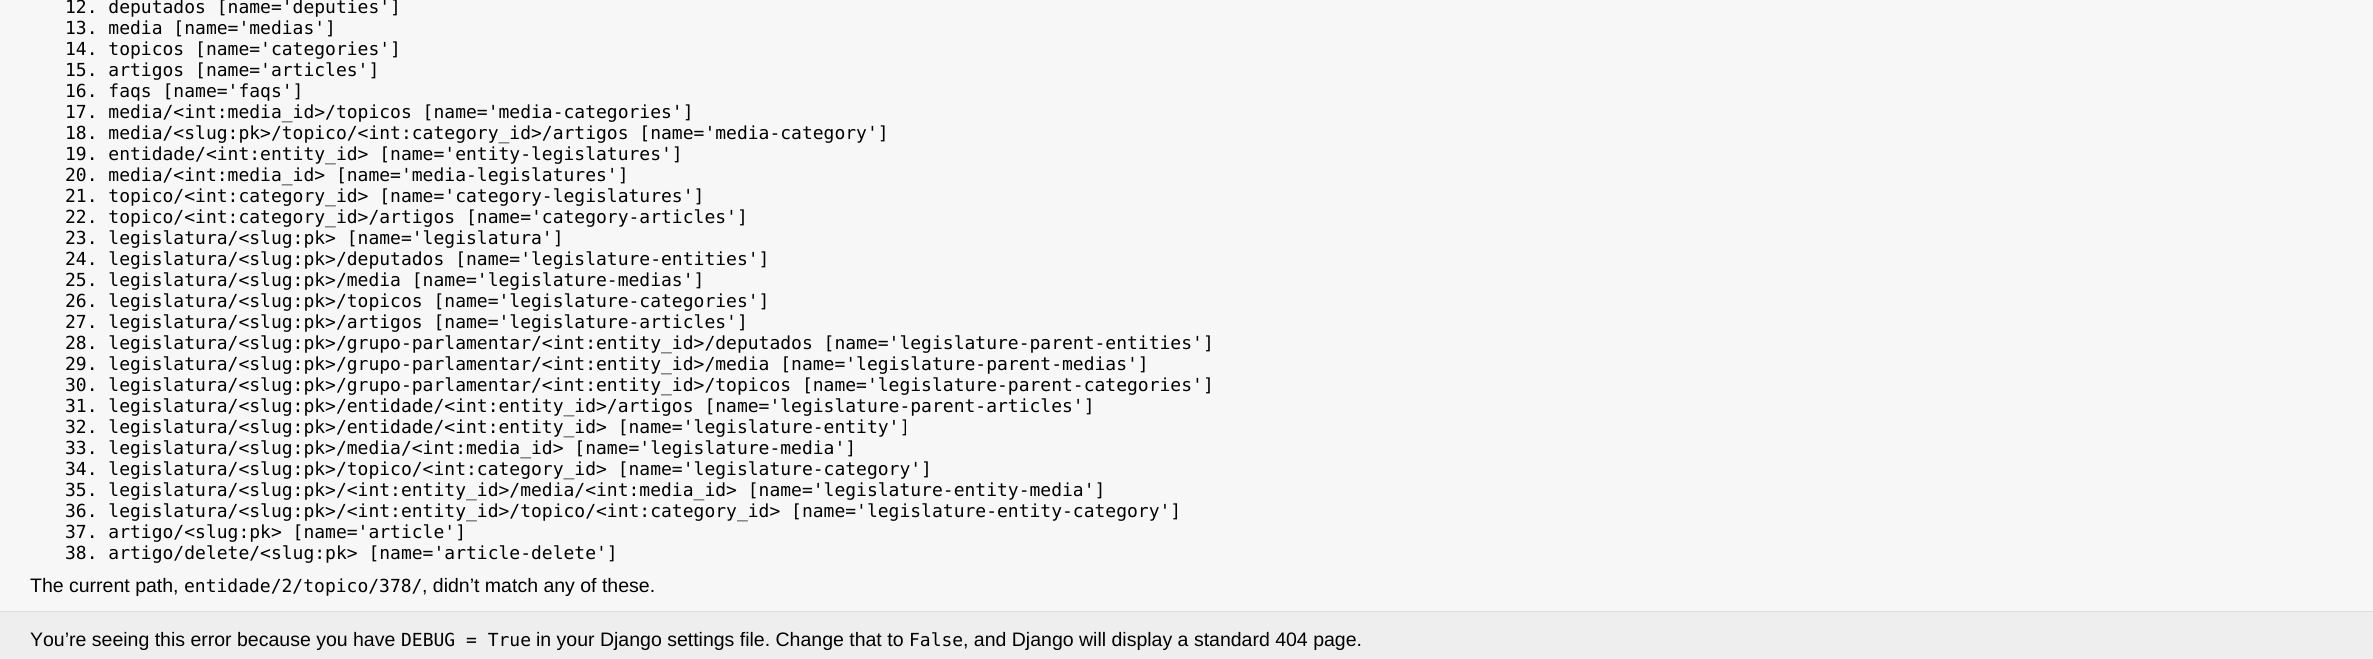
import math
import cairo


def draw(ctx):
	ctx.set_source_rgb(0.965, 0.965, 0.965)
	ctx.paint()
	ctx.set_source_rgb(0.867, 0.867, 0.867)
	ctx.rectangle(0, 611, 2373, 1)
	ctx.fill()
	ctx.select_font_face('DejaVu Sans Mono')
	ctx.set_font_size(18)
	ctx.set_source_rgb(0, 0, 0)
	for x, y, s in [
		(65, 13, '12. deputados [name=\'deputies\']'),
		(65, 34, '13. media [name=\'medias\']'),
		(65, 55, '14. topicos [name=\'categories\']'),
		(65, 76, '15. artigos [name=\'articles\']'),
		(65, 97, '16. faqs [name=\'faqs\']'),
		(65, 118, '17. media/<int:media_id>/topicos [name=\'media-categories\']'),
		(65, 139, '18. media/<slug:pk>/topico/<int:category_id>/artigos [name=\'media-category\']'),
		(65, 160, '19. entidade/<int:entity_id> [name=\'entity-legislatures\']'),
		(65, 181, '20. media/<int:media_id> [name=\'media-legislatures\']'),
		(65, 202, '21. topico/<int:category_id> [name=\'category-legislatures\']'),
		(65, 223, '22. topico/<int:category_id>/artigos [name=\'category-articles\']'),
		(65, 244, '23. legislatura/<slug:pk> [name=\'legislatura\']'),
		(65, 265, '24. legislatura/<slug:pk>/deputados [name=\'legislature-entities\']'),
		(65, 286, '25. legislatura/<slug:pk>/media [name=\'legislature-medias\']'),
		(65, 307, '26. legislatura/<slug:pk>/topicos [name=\'legislature-categories\']'),
		(65, 328, '27. legislatura/<slug:pk>/artigos [name=\'legislature-articles\']'),
		(65, 349, '28. legislatura/<slug:pk>/grupo-parlamentar/<int:entity_id>/deputados [name=\'legislature-parent-entities\']'),
		(65, 370, '29. legislatura/<slug:pk>/grupo-parlamentar/<int:entity_id>/media [name=\'legislature-parent-medias\']'),
		(65, 391, '30. legislatura/<slug:pk>/grupo-parlamentar/<int:entity_id>/topicos [name=\'legislature-parent-categories\']'),
		(65, 412, '31. legislatura/<slug:pk>/entidade/<int:entity_id>/artigos [name=\'legislature-parent-articles\']'),
		(65, 433, '32. legislatura/<slug:pk>/entidade/<int:entity_id> [name=\'legislature-entity\']'),
		(65, 454, '33. legislatura/<slug:pk>/media/<int:media_id> [name=\'legislature-media\']'),
		(65, 475, '34. legislatura/<slug:pk>/topico/<int:category_id> [name=\'legislature-category\']'),
		(65, 496, '35. legislatura/<slug:pk>/<int:entity_id>/media/<int:media_id> [name=\'legislature-entity-media\']'),
		(65, 517, '36. legislatura/<slug:pk>/<int:entity_id>/topico/<int:category_id> [name=\'legislature-entity-category\']'),
		(65, 538, '37. artigo/<slug:pk> [name=\'article\']'),
		(65, 559, '38. artigo/delete/<slug:pk> [name=\'article-delete\']'),
	]:
		ctx.move_to(x, y)
		ctx.show_text(s)
	ctx.select_font_face('Liberation Sans')
	ctx.set_font_size(19.5)
	ctx.move_to(30, 592)
	ctx.show_text('The current path,')
	ctx.select_font_face('DejaVu Sans Mono')
	ctx.set_font_size(18)
	ctx.move_to(184, 592)
	ctx.show_text('entidade/2/topico/378/')
	ctx.select_font_face('Liberation Sans')
	ctx.set_font_size(19.5)
	ctx.move_to(422, 592)
	ctx.show_text(', didn’t match any of these.')
	ctx.set_source_rgb(0.933, 0.933, 0.933)
	ctx.rectangle(0, 612, 2373, 47)
	ctx.fill()
	ctx.set_source_rgb(0, 0, 0)
	ctx.move_to(30, 646)
	ctx.show_text('You’re seeing this error because you have')
	ctx.select_font_face('DejaVu Sans Mono')
	ctx.set_font_size(18)
	ctx.move_to(401, 646)
	ctx.show_text('DEBUG = True')
	ctx.select_font_face('Liberation Sans')
	ctx.set_font_size(19.5)
	ctx.move_to(536, 646)
	ctx.show_text('in your Django settings file. Change that to')
	ctx.select_font_face('DejaVu Sans Mono')
	ctx.set_font_size(18)
	ctx.move_to(909, 646)
	ctx.show_text('False')
	ctx.select_font_face('Liberation Sans')
	ctx.set_font_size(19.5)
	ctx.move_to(963, 646)
	ctx.show_text(', and Django will display a standard 404 page.')


surface = cairo.ImageSurface(cairo.FORMAT_RGB24, 2373, 659)
ctx = cairo.Context(surface)
options = cairo.FontOptions()
options.set_hint_metrics(cairo.HINT_METRICS_OFF)
options.set_hint_style(cairo.HINT_STYLE_NONE)
ctx.set_font_options(options)
ctx.set_miter_limit(4)
draw(ctx)
surface.write_to_png('image.png')
